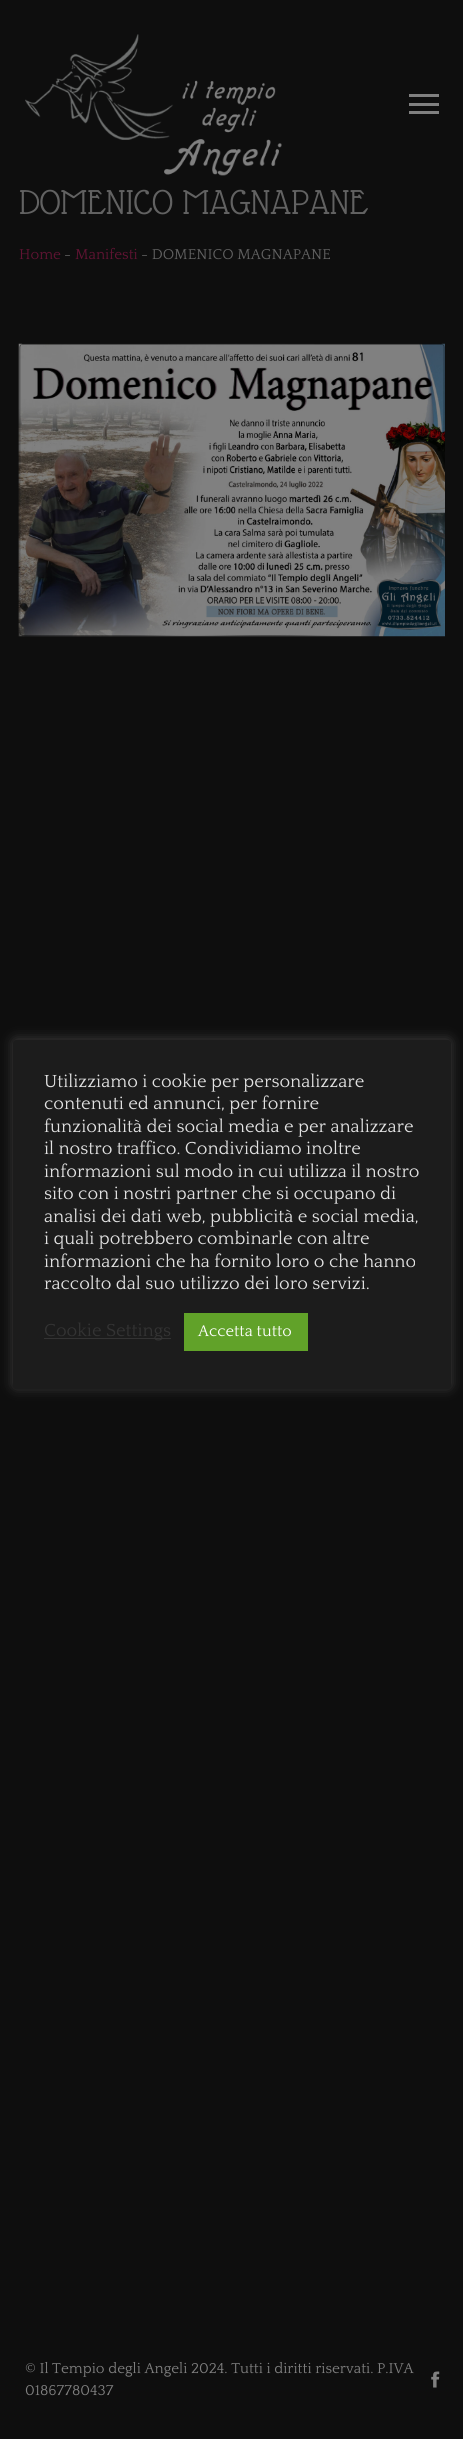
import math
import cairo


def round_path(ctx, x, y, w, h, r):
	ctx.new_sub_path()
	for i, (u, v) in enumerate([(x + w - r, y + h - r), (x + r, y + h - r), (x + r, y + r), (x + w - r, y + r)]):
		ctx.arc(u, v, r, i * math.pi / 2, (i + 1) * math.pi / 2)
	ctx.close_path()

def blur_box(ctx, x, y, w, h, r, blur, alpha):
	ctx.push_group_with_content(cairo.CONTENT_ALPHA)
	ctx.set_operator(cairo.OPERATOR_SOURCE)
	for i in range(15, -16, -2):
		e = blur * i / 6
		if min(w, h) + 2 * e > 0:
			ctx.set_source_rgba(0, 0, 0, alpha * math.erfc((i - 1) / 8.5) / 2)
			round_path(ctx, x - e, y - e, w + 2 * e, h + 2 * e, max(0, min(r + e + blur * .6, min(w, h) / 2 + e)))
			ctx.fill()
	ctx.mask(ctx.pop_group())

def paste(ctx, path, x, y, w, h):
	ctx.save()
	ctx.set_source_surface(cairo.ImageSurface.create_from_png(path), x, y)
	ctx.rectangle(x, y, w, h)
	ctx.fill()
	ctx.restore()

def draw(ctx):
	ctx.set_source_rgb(0.055, 0.055, 0.055)
	ctx.paint()
	paste(ctx, 'media/1.png', 25, 34, 257, 142)
	ctx.set_source_rgb(0.502, 0.502, 0.502)
	ctx.rectangle(409, 94, 30, 3)
	ctx.rectangle(409, 103, 30, 3)
	ctx.rectangle(409, 111, 30, 3)
	ctx.fill()
	ctx.select_font_face('Glass Antiqua')
	ctx.set_font_size(37.5)
	ctx.set_source_rgb(0.384, 0.384, 0.384)
	ctx.move_to(19, 214)
	ctx.show_text('DOMENICO MAGNAPANE')
	ctx.select_font_face('Quattrocento')
	ctx.set_font_size(15)
	ctx.set_source_rgb(0.384, 0.078, 0.2)
	ctx.move_to(19, 259)
	ctx.show_text('Home')
	ctx.set_source_rgb(0.384, 0.384, 0.384)
	ctx.move_to(64, 259)
	ctx.show_text('-')
	ctx.set_source_rgb(0.384, 0.078, 0.2)
	ctx.move_to(75, 259)
	ctx.show_text('Manifesti')
	ctx.set_source_rgb(0.384, 0.384, 0.384)
	ctx.move_to(141, 259)
	ctx.show_text('- DOMENICO MAGNAPANE')
	paste(ctx, 'media/2.png', 18, 343, 427, 294)
	ctx.set_source_rgb(0.502, 0.502, 0.502)
	ctx.move_to(25, 2373)
	ctx.show_text('© Il Tempio degli Angeli 2024. Tutti i diritti riservati. P.IVA')
	ctx.move_to(25, 2395)
	ctx.show_text('01867780437')
	paste(ctx, 'media/3.png', 431, 2371, 9, 17)
	ctx.set_source_rgb(0.675, 0.671, 0.671)
	blur_box(ctx, 13, 1039, 438, 349, 3, 6, 0.3)
	ctx.set_source_rgb(0.11, 0.11, 0.11)
	round_path(ctx, 13, 1040, 438, 349, 3)
	ctx.fill()
	ctx.set_font_size(18.3)
	ctx.set_source_rgb(0.886, 0.886, 0.886)
	for x, y, s in [
		(44, 1087, 'Utilizziamo i cookie per personalizzare'),
		(44, 1109, 'contenuti ed annunci, per fornire'),
		(44, 1132, 'funzionalità dei social media e per analizzare'),
		(44, 1154, 'il nostro traffico. Condividiamo inoltre'),
		(44, 1177, 'informazioni sul modo in cui utilizza il nostro'),
		(44, 1199, 'sito con i nostri partner che si occupano di'),
		(44, 1222, 'analisi dei dati web, pubblicità e social media,'),
		(44, 1244, 'i quali potrebbero combinarle con altre'),
		(44, 1267, 'informazioni che ha fornito loro o che hanno'),
		(44, 1289, 'raccolto dal suo utilizzo dei loro servizi.'),
	]:
		ctx.move_to(x, y)
		ctx.show_text(s)
	ctx.set_source_rgb(0.2, 0.2, 0.2)
	ctx.rectangle(44, 1338, 127, 1)
	ctx.fill()
	ctx.move_to(44, 1336)
	ctx.show_text('Cookie Settings')
	ctx.set_source_rgb(0.38, 0.635, 0.161)
	ctx.rectangle(184, 1313, 124, 38)
	ctx.fill()
	ctx.set_font_size(16.25)
	ctx.set_source_rgb(1, 1, 1)
	ctx.move_to(198, 1336)
	ctx.show_text('Accetta tutto')


surface = cairo.ImageSurface(cairo.FORMAT_RGB24, 463, 2439)
ctx = cairo.Context(surface)
options = cairo.FontOptions()
options.set_hint_metrics(cairo.HINT_METRICS_OFF)
options.set_hint_style(cairo.HINT_STYLE_NONE)
ctx.set_font_options(options)
ctx.set_miter_limit(4)
draw(ctx)
surface.write_to_png('image.png')
